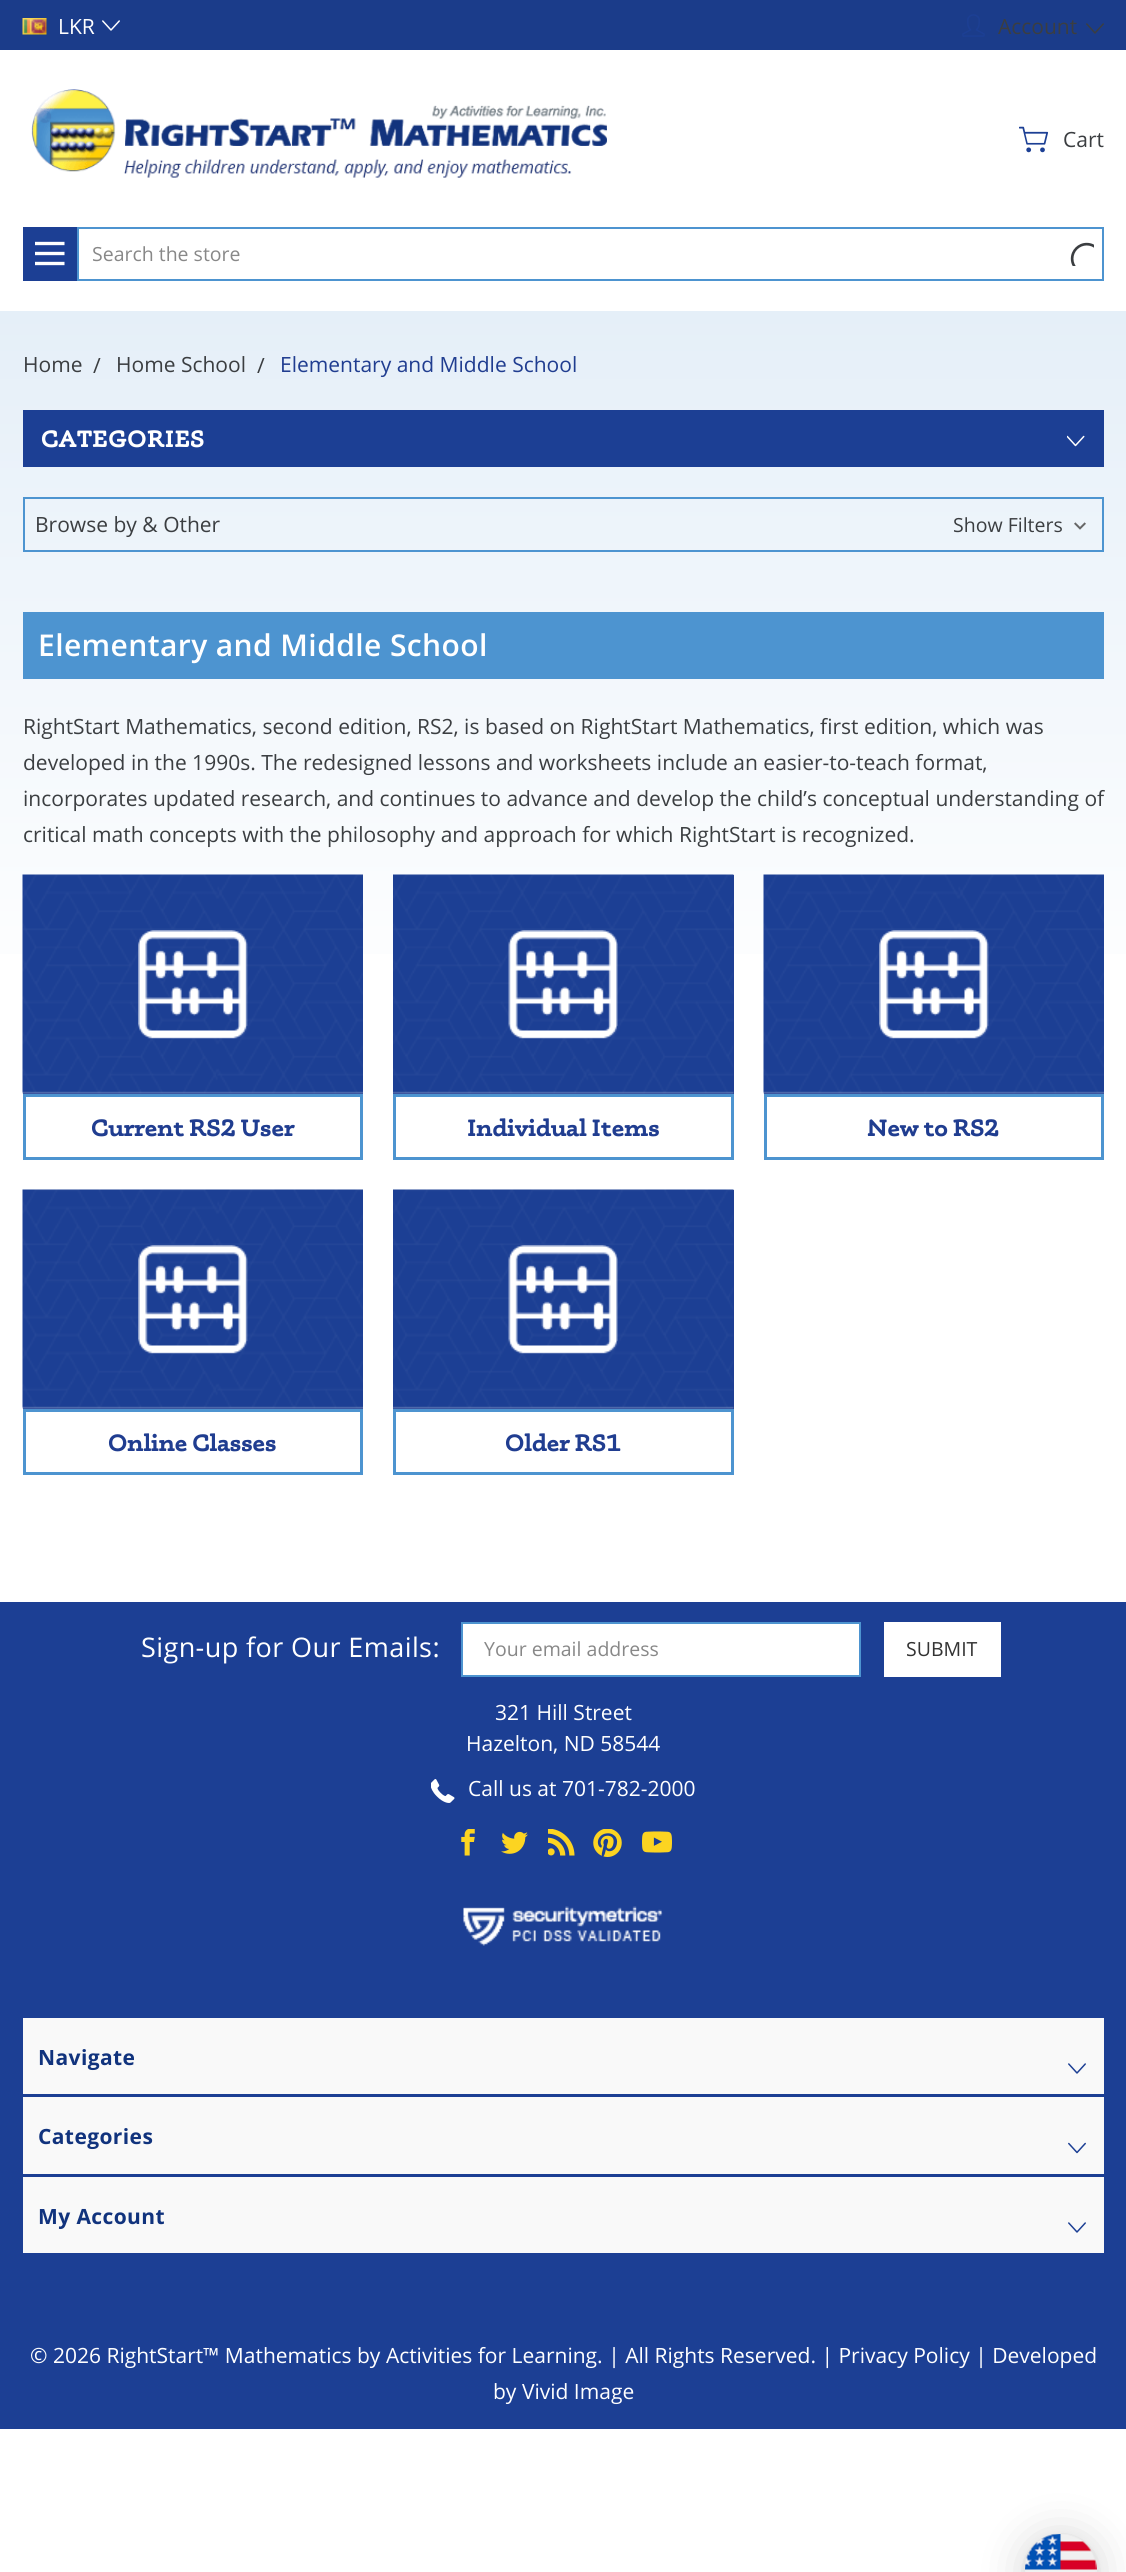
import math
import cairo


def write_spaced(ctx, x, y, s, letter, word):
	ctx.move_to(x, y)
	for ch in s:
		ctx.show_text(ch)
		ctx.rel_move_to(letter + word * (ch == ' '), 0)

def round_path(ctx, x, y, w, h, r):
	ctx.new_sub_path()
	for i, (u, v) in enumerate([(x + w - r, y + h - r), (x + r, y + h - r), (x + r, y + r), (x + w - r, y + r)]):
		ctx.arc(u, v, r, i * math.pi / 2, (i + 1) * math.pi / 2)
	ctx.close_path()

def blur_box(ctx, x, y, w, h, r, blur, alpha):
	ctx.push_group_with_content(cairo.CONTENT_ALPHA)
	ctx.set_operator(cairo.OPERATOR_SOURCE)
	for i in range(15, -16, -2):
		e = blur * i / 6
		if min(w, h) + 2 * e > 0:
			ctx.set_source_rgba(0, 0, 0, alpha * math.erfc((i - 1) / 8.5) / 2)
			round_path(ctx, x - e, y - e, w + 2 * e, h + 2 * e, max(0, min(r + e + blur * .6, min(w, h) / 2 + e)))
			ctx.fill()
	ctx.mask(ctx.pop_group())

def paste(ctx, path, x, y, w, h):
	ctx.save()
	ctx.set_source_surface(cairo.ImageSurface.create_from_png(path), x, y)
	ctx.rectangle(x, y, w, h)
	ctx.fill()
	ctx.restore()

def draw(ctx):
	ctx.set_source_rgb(1, 1, 1)
	ctx.paint()
	ctx.set_source_rgb(0.106, 0.235, 0.541)
	ctx.rectangle(0, 0, 1126, 50)
	ctx.fill()
	paste(ctx, 'media/1.png', 22, 18, 25, 17)
	ctx.select_font_face('Open Sans')
	ctx.set_font_size(21)
	ctx.set_source_rgb(1, 1, 1)
	ctx.move_to(58, 34)
	ctx.show_text('LKR')
	paste(ctx, 'media/2.png', 102, 20, 18, 11)
	paste(ctx, 'media/3.png', 962, 14, 23, 23)
	ctx.set_source_rgb(0.231, 0.243, 0.255)
	ctx.move_to(998, 34)
	ctx.show_text('Account')
	paste(ctx, 'media/4.png', 1086, 23, 18, 11)
	paste(ctx, 'media/5.png', 31, 89, 576, 89)
	paste(ctx, 'media/6.png', 1019, 126, 30, 27)
	ctx.move_to(1063, 147)
	ctx.show_text('Cart')
	ctx.set_source_rgb(0.11, 0.247, 0.58)
	ctx.rectangle(23, 227, 54, 54)
	ctx.fill()
	paste(ctx, 'media/7.png', 35, 241, 30, 25)
	ctx.rectangle(78, 228, 1025, 52)
	ctx.set_source_rgb(0.302, 0.58, 0.816)
	ctx.stroke()
	ctx.set_font_size(19.5)
	ctx.set_source_rgb(0.533, 0.533, 0.533)
	ctx.move_to(92, 261)
	ctx.show_text('Search the store')
	paste(ctx, 'media/8.png', 1070, 242, 24, 24)
	gradient = cairo.LinearGradient(563, 310, 563, 1022)
	gradient.add_color_stop_rgba(0, 0.898, 0.937, 0.973, 1)
	gradient.add_color_stop_rgba(1, 1, 1, 1, 1)
	ctx.set_source(gradient)
	ctx.rectangle(0, 311, 1126, 643)
	ctx.fill()
	ctx.set_font_size(21)
	ctx.set_source_rgb(0.231, 0.243, 0.255)
	for x, y, s in [
		(23, 372, 'Home'),
		(93, 373, '/'),
		(116, 372, 'Home School'),
		(257, 373, '/'),
	]:
		ctx.move_to(x, y)
		ctx.show_text(s)
	ctx.set_source_rgb(0.125, 0.239, 0.565)
	ctx.move_to(280, 372)
	ctx.show_text('Elementary and Middle School')
	ctx.set_source_rgb(0.11, 0.247, 0.58)
	ctx.rectangle(23, 410, 1081, 57)
	ctx.fill()
	ctx.select_font_face('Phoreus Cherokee', cairo.FONT_SLANT_NORMAL, cairo.FONT_WEIGHT_BOLD)
	ctx.set_font_size(24)
	ctx.set_source_rgb(1, 1, 1)
	write_spaced(ctx, 41, 447, 'CATEGORIES', 0.4, 0)
	paste(ctx, 'media/9.png', 1067, 435, 18, 12)
	ctx.rectangle(24, 498, 1079, 53)
	ctx.set_source_rgb(0.302, 0.58, 0.816)
	ctx.stroke()
	ctx.select_font_face('Open Sans')
	ctx.set_font_size(21)
	ctx.set_source_rgb(0.231, 0.243, 0.255)
	ctx.move_to(35, 532)
	ctx.show_text('Browse by & Other')
	ctx.set_font_size(19.5)
	ctx.move_to(953, 532)
	ctx.show_text('Show Filters')
	paste(ctx, 'media/10.png', 1074, 522, 12, 8)
	ctx.set_source_rgb(0.302, 0.58, 0.816)
	ctx.rectangle(23, 612, 1081, 67)
	ctx.fill()
	ctx.select_font_face('Open Sans SemiBold')
	ctx.set_font_size(30)
	ctx.set_source_rgb(1, 1, 1)
	write_spaced(ctx, 38, 656, 'Elementary and Middle School', 0.4, 0)
	ctx.select_font_face('Open Sans')
	ctx.set_font_size(21)
	ctx.set_source_rgb(0.231, 0.243, 0.255)
	for x, y, s in [
		(23, 734, 'RightStart Mathematics, second edition, RS2, is based on RightStart Mathematics, first edition, which was'),
		(23, 770, 'developed in the 1990s. The redesigned lessons and worksheets include an easier-to-teach format,'),
		(23, 806, 'incorporates updated research, and continues to advance and develop the child’s conceptual understanding of'),
		(23, 842, 'critical math concepts with the philosophy and approach for which RightStart is recognized.'),
	]:
		ctx.move_to(x, y)
		ctx.show_text(s)
	ctx.set_source_rgb(0.125, 0.239, 0.565)
	ctx.rectangle(23, 1091, 340, 3)
	ctx.fill()
	paste(ctx, 'media/11.png', 22, 874, 341, 220)
	paste(ctx, 'media/12.png', 138, 930, 110, 109)
	ctx.rectangle(24.5, 1095.5, 337, 63)
	ctx.set_source_rgb(0.302, 0.58, 0.816)
	ctx.set_line_width(3)
	ctx.stroke()
	ctx.select_font_face('Phoreus Cherokee', cairo.FONT_SLANT_NORMAL, cairo.FONT_WEIGHT_BOLD)
	ctx.set_font_size(24)
	ctx.set_source_rgb(0.125, 0.239, 0.565)
	ctx.move_to(91, 1136)
	ctx.show_text('Current RS2 User')
	ctx.rectangle(393, 875, 341, 219)
	ctx.fill()
	paste(ctx, 'media/13.png', 393, 874, 341, 220)
	paste(ctx, 'media/14.png', 508, 930, 110, 109)
	ctx.rectangle(394.5, 1095.5, 338, 63)
	ctx.set_source_rgb(0.302, 0.58, 0.816)
	ctx.stroke()
	ctx.set_source_rgb(0.125, 0.239, 0.565)
	ctx.move_to(467, 1136)
	ctx.show_text('Individual Items')
	ctx.rectangle(764, 1091, 340, 3)
	ctx.fill()
	paste(ctx, 'media/15.png', 763, 874, 341, 220)
	paste(ctx, 'media/16.png', 879, 930, 110, 109)
	ctx.rectangle(765.5, 1095.5, 337, 63)
	ctx.set_source_rgb(0.302, 0.58, 0.816)
	ctx.stroke()
	ctx.set_source_rgb(0.125, 0.239, 0.565)
	ctx.move_to(867, 1136)
	ctx.show_text('New to RS2')
	ctx.rectangle(23, 1406, 340, 3)
	ctx.fill()
	paste(ctx, 'media/17.png', 22, 1189, 341, 220)
	paste(ctx, 'media/18.png', 138, 1245, 110, 109)
	ctx.rectangle(24.5, 1410.5, 337, 63)
	ctx.set_source_rgb(0.302, 0.58, 0.816)
	ctx.stroke()
	ctx.set_source_rgb(0.125, 0.239, 0.565)
	ctx.move_to(108, 1451)
	ctx.show_text('Online Classes')
	ctx.rectangle(393, 1190, 341, 219)
	ctx.fill()
	paste(ctx, 'media/19.png', 393, 1189, 341, 220)
	paste(ctx, 'media/20.png', 508, 1245, 110, 109)
	ctx.rectangle(394.5, 1410.5, 338, 63)
	ctx.set_source_rgb(0.302, 0.58, 0.816)
	ctx.stroke()
	ctx.set_source_rgb(0.125, 0.239, 0.565)
	ctx.move_to(505, 1451)
	ctx.show_text('Older RS1')
	ctx.set_source_rgb(0.11, 0.247, 0.58)
	ctx.rectangle(0, 1602, 1126, 827)
	ctx.fill()
	ctx.select_font_face('Open Sans')
	ctx.set_font_size(27)
	ctx.set_source_rgb(1, 1, 1)
	write_spaced(ctx, 141, 1657, 'Sign-up for Our Emails:', 0.4, 0)
	ctx.rectangle(462, 1623, 398, 53)
	ctx.fill_preserve()
	ctx.set_source_rgb(0.302, 0.58, 0.816)
	ctx.set_line_width(2)
	ctx.stroke()
	ctx.set_font_size(19.5)
	ctx.set_source_rgb(0.533, 0.533, 0.533)
	ctx.move_to(484, 1656)
	ctx.show_text('Your email address')
	ctx.set_source_rgb(1, 1, 1)
	ctx.rectangle(884, 1622, 117, 55)
	ctx.fill()
	ctx.set_source_rgb(0.2, 0.2, 0.2)
	ctx.move_to(906, 1656)
	ctx.show_text('SUBMIT')
	ctx.set_font_size(21)
	ctx.set_source_rgb(1, 1, 1)
	ctx.move_to(495, 1720)
	ctx.show_text('321 Hill Street')
	ctx.move_to(466, 1751)
	ctx.show_text('Hazelton, ND 58544')
	paste(ctx, 'media/21.png', 431, 1779, 24, 24)
	ctx.move_to(468, 1796)
	ctx.show_text('Call us at 701-782-2000')
	paste(ctx, 'media/22.png', 461, 1829, 14, 27)
	paste(ctx, 'media/23.png', 501, 1831, 27, 23)
	paste(ctx, 'media/24.png', 548, 1829, 27, 27)
	paste(ctx, 'media/25.png', 593, 1829, 29, 28)
	paste(ctx, 'media/26.png', 642, 1831, 30, 22)
	paste(ctx, 'media/27.png', 463, 1906, 200, 40)
	ctx.set_source_rgb(0.976, 0.976, 0.976)
	ctx.rectangle(23, 2018, 1081, 76)
	ctx.fill()
	ctx.select_font_face('Open Sans', cairo.FONT_SLANT_NORMAL, cairo.FONT_WEIGHT_BOLD)
	ctx.set_source_rgb(0.067, 0.2, 0.49)
	write_spaced(ctx, 38, 2065, 'Navigate', 0.4, 0)
	paste(ctx, 'media/28.png', 1068, 2063, 18, 11)
	ctx.set_source_rgb(0.976, 0.976, 0.976)
	ctx.rectangle(23, 2097, 1081, 77)
	ctx.fill()
	ctx.set_source_rgb(0.067, 0.2, 0.49)
	write_spaced(ctx, 38, 2144, 'Categories', 0.4, 0)
	paste(ctx, 'media/29.png', 1068, 2142, 18, 12)
	ctx.set_source_rgb(0.976, 0.976, 0.976)
	ctx.rectangle(23, 2177, 1081, 76)
	ctx.fill()
	ctx.set_source_rgb(0.067, 0.2, 0.49)
	write_spaced(ctx, 38, 2224, 'My Account', 0.4, 0)
	paste(ctx, 'media/28.png', 1068, 2222, 18, 11)
	ctx.select_font_face('Open Sans')
	ctx.set_source_rgb(1, 1, 1)
	ctx.move_to(30, 2363)
	ctx.show_text('© 2026 RightStart™ Mathematics by Activities for Learning. | All Rights Reserved. | Privacy Policy | Developed')
	ctx.move_to(493, 2399)
	ctx.show_text('by Vivid Image')
	ctx.set_source_rgb(0, 0, 0)
	blur_box(ctx, 1025, 2537, 72, 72, 36, 24, 0.16)
	blur_box(ctx, 1025, 2535, 72, 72, 36, 4.5, 0.06)
	paste(ctx, 'media/30.png', 1025, 2534, 72, 38)


surface = cairo.ImageSurface(cairo.FORMAT_RGB24, 1126, 2572)
ctx = cairo.Context(surface)
options = cairo.FontOptions()
options.set_hint_metrics(cairo.HINT_METRICS_OFF)
options.set_hint_style(cairo.HINT_STYLE_NONE)
ctx.set_font_options(options)
ctx.set_miter_limit(4)
draw(ctx)
surface.write_to_png('image.png')
